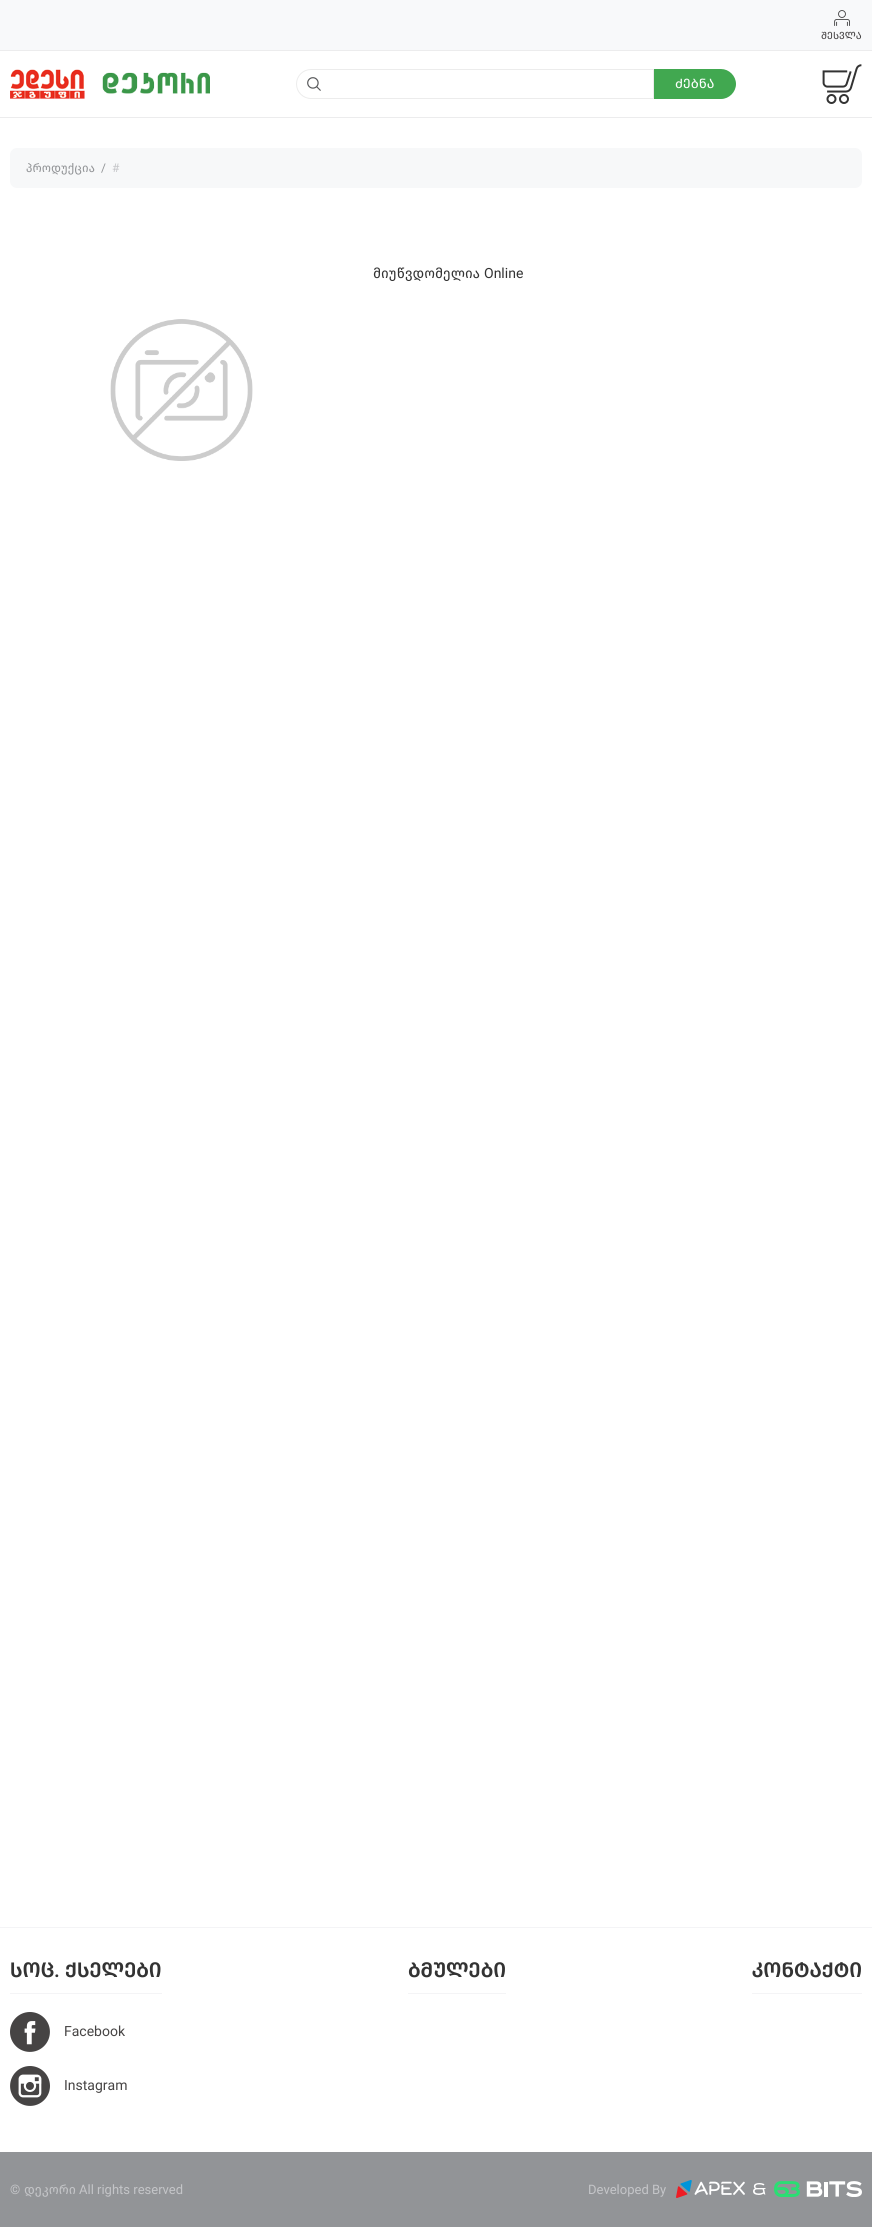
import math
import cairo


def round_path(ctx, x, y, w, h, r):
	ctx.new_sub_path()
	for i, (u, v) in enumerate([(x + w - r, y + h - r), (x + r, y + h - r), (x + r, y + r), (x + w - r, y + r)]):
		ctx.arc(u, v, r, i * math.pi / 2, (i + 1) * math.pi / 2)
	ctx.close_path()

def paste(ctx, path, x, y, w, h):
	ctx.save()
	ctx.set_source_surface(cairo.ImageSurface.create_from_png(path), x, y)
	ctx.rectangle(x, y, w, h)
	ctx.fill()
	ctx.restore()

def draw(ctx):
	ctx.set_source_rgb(1, 1, 1)
	ctx.paint()
	ctx.set_source_rgb(0.969, 0.973, 0.98)
	ctx.rectangle(0, 0, 872, 50)
	ctx.fill()
	ctx.set_source_rgb(0.925, 0.925, 0.929)
	ctx.rectangle(0, 50, 872, 1)
	ctx.fill()
	paste(ctx, 'media/1.png', 834, 10, 16, 16)
	ctx.select_font_face('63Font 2')
	ctx.set_font_size(10)
	ctx.set_source_rgb(0.275, 0.267, 0.267)
	ctx.move_to(821, 39)
	ctx.show_text('შესვლა')
	ctx.set_source_rgb(0.925, 0.925, 0.929)
	ctx.rectangle(0, 117, 872, 1)
	ctx.fill()
	paste(ctx, 'media/2.png', 10, 69, 200, 30)
	paste(ctx, 'media/3.png', 307, 77, 14, 14)
	ctx.new_path()
	ctx.move_to(311, 69.5)
	ctx.line_to(653.5, 69.5)
	ctx.line_to(653.5, 98.5)
	ctx.line_to(311, 98.5)
	ctx.curve_to(303, 98.5, 296.5, 92, 296.5, 84)
	ctx.curve_to(296.5, 76, 303, 69.5, 311, 69.5)
	ctx.close_path()
	ctx.set_source_rgb(0.925, 0.925, 0.925)
	ctx.set_line_width(1)
	ctx.stroke()
	ctx.set_source_rgb(0.255, 0.659, 0.314)
	ctx.new_path()
	ctx.move_to(655, 70)
	ctx.line_to(721, 70)
	ctx.curve_to(728.5, 70, 735, 76.5, 735, 84)
	ctx.curve_to(735, 91.5, 728.5, 98, 721, 98)
	ctx.line_to(655, 98)
	ctx.close_path()
	ctx.fill_preserve()
	ctx.set_line_width(2)
	ctx.stroke()
	ctx.set_font_size(13)
	ctx.set_source_rgb(1, 1, 1)
	ctx.move_to(675, 88)
	ctx.show_text('ძებნა')
	paste(ctx, 'media/4.png', 822, 64, 40, 40)
	ctx.set_source_rgb(0.965, 0.969, 0.976)
	round_path(ctx, 10, 148, 852, 40, 7)
	ctx.fill()
	ctx.select_font_face('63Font')
	ctx.set_font_size(12)
	ctx.set_source_rgb(0.573, 0.58, 0.592)
	ctx.move_to(26, 172)
	ctx.show_text('პროდუქცია')
	ctx.select_font_face('Roboto')
	ctx.move_to(101, 172)
	ctx.show_text('/')
	ctx.set_source_rgb(0.769, 0.773, 0.784)
	ctx.move_to(112, 172)
	ctx.show_text('#')
	ctx.select_font_face('63Font')
	ctx.set_font_size(14)
	ctx.set_source_rgb(0.2, 0.2, 0.2)
	ctx.move_to(373, 278)
	ctx.show_text('მიუწვდომელია')
	ctx.select_font_face('Roboto')
	ctx.move_to(484, 278)
	ctx.show_text('Online')
	paste(ctx, 'media/5.png', 110, 319, 143, 142)
	ctx.set_source_rgb(0.957, 0.957, 0.961)
	ctx.rectangle(0, 1927, 872, 1)
	ctx.fill()
	ctx.rectangle(10, 1993, 152, 1)
	ctx.fill()
	ctx.select_font_face('63Font Medium')
	ctx.set_font_size(21)
	ctx.set_source_rgb(0.2, 0.2, 0.2)
	ctx.move_to(10, 1977)
	ctx.show_text('სოც')
	ctx.select_font_face('Roboto Medium')
	ctx.move_to(54, 1977)
	ctx.show_text('.')
	ctx.select_font_face('63Font Medium')
	ctx.move_to(65, 1977)
	ctx.show_text('ქსელები')
	paste(ctx, 'media/6.png', 10, 2012, 40, 40)
	ctx.select_font_face('Roboto')
	ctx.set_font_size(14)
	ctx.set_source_rgb(0.275, 0.267, 0.267)
	ctx.move_to(64, 2036)
	ctx.show_text('Facebook')
	paste(ctx, 'media/7.png', 10, 2066, 40, 40)
	ctx.move_to(64, 2090)
	ctx.show_text('Instagram')
	ctx.set_source_rgb(0.957, 0.957, 0.961)
	ctx.rectangle(408, 1993, 98, 1)
	ctx.fill()
	ctx.select_font_face('63Font Medium')
	ctx.set_font_size(21)
	ctx.set_source_rgb(0.2, 0.2, 0.2)
	ctx.move_to(408, 1977)
	ctx.show_text('ბმულები')
	ctx.set_source_rgb(0.957, 0.957, 0.961)
	ctx.rectangle(752, 1993, 110, 1)
	ctx.fill()
	ctx.set_source_rgb(0.2, 0.2, 0.2)
	ctx.move_to(752, 1977)
	ctx.show_text('კონტაქტი')
	ctx.set_source_rgb(0.573, 0.58, 0.592)
	ctx.rectangle(0, 2152, 872, 75)
	ctx.fill()
	ctx.select_font_face('Roboto')
	ctx.set_font_size(13)
	ctx.set_source_rgb(0.769, 0.773, 0.784)
	ctx.move_to(10, 2194)
	ctx.show_text('©')
	ctx.select_font_face('63Font')
	ctx.move_to(24, 2194)
	ctx.show_text('დეკორი')
	ctx.select_font_face('Roboto')
	ctx.move_to(79, 2194)
	ctx.show_text('All rights reserved')
	ctx.move_to(588, 2194)
	ctx.show_text('Developed By')
	paste(ctx, 'media/8.png', 676, 2180, 69, 18)
	paste(ctx, 'media/9.png', 753, 2183, 13, 12)
	paste(ctx, 'media/10.png', 774, 2181, 88, 16)


surface = cairo.ImageSurface(cairo.FORMAT_RGB24, 872, 2227)
ctx = cairo.Context(surface)
options = cairo.FontOptions()
options.set_hint_metrics(cairo.HINT_METRICS_OFF)
options.set_hint_style(cairo.HINT_STYLE_NONE)
ctx.set_font_options(options)
ctx.set_miter_limit(4)
draw(ctx)
surface.write_to_png('image.png')
